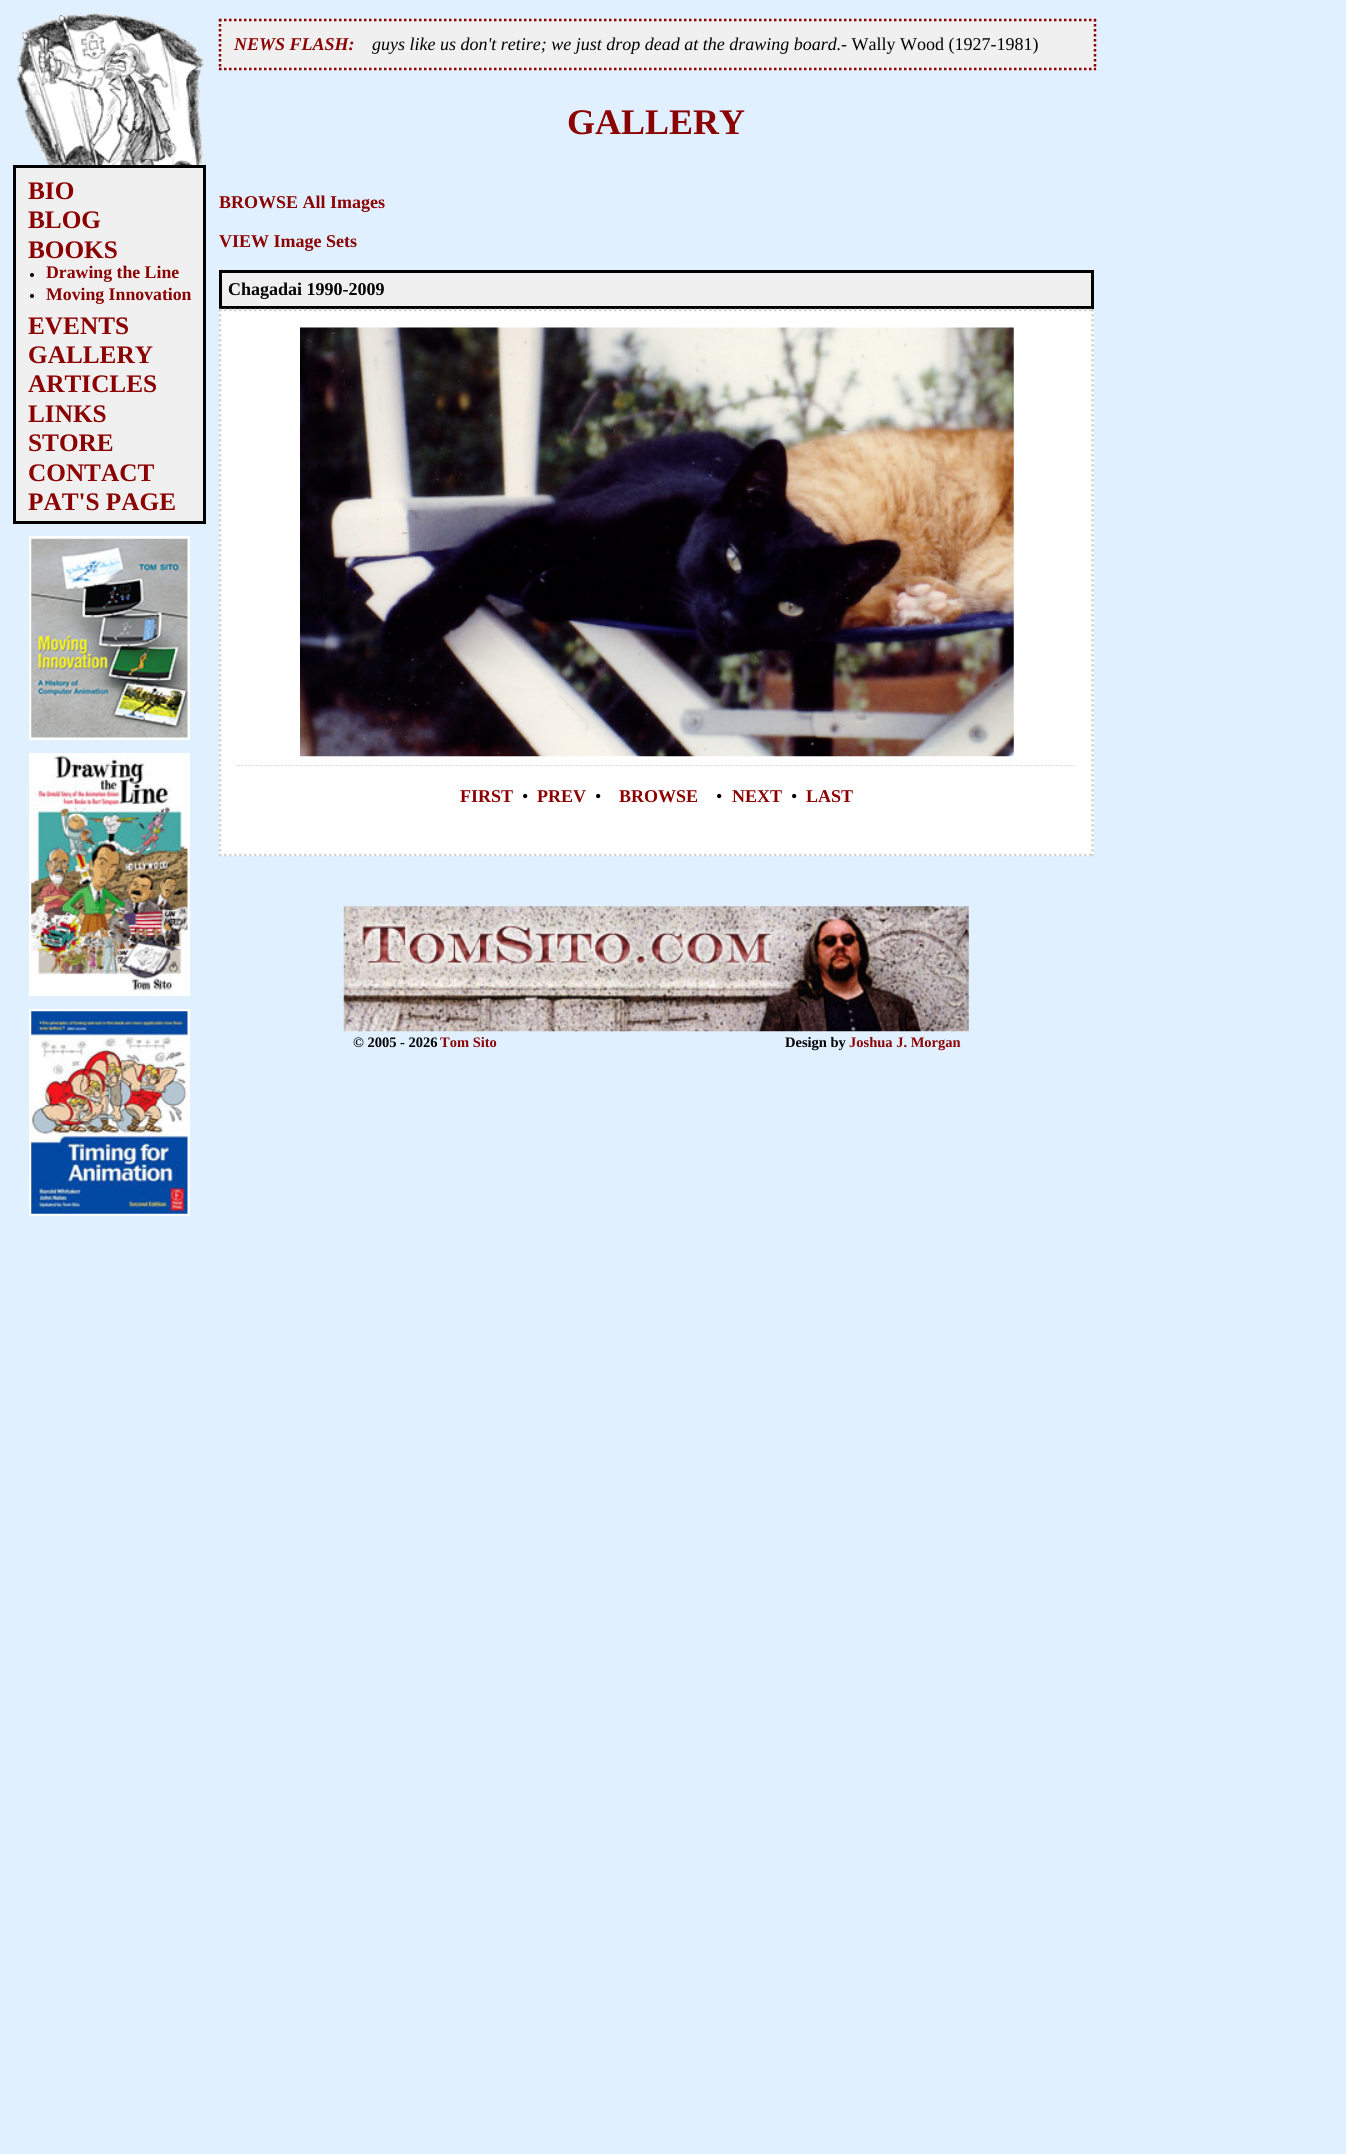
import math
import cairo


def paste(ctx, path, x, y, w, h):
	ctx.save()
	ctx.set_source_surface(cairo.ImageSurface.create_from_png(path), x, y)
	ctx.rectangle(x, y, w, h)
	ctx.fill()
	ctx.restore()

def draw(ctx):
	ctx.set_source_rgb(0.878, 0.941, 1)
	ctx.paint()
	paste(ctx, 'media/1.png', 16, 13, 188, 152)
	ctx.set_source_rgb(0.941, 0.941, 0.941)
	ctx.rectangle(14.5, 166.5, 190, 356)
	ctx.fill_preserve()
	ctx.set_source_rgb(0, 0, 0)
	ctx.set_line_width(3)
	ctx.stroke()
	ctx.select_font_face('Liberation Serif', cairo.FONT_SLANT_NORMAL, cairo.FONT_WEIGHT_BOLD)
	ctx.set_font_size(25.25)
	ctx.set_source_rgb(0.545, 0, 0)
	for x, y, s in [
		(28, 199, 'BIO'),
		(28, 228, 'BLOG'),
		(28, 258, 'BOOKS'),
	]:
		ctx.move_to(x, y)
		ctx.show_text(s)
	ctx.set_source_rgb(0, 0, 0)
	ctx.new_path()
	ctx.arc(32, 275, 2, 0, 2 * math.pi)
	ctx.fill()
	ctx.set_font_size(17.75)
	ctx.set_source_rgb(0.545, 0, 0)
	ctx.move_to(46, 278)
	ctx.show_text('Drawing the Line')
	ctx.set_source_rgb(0, 0, 0)
	ctx.new_path()
	ctx.arc(32, 296, 2, 0, 2 * math.pi)
	ctx.fill()
	ctx.set_source_rgb(0.545, 0, 0)
	ctx.move_to(46, 300)
	ctx.show_text('Moving Innovation')
	ctx.set_font_size(25.25)
	for x, y, s in [
		(28, 334, 'EVENTS'),
		(28, 363, 'GALLERY'),
		(28, 392, 'ARTICLES'),
		(28, 422, 'LINKS'),
		(28, 451, 'STORE'),
		(28, 481, 'CONTACT'),
		(28, 510, 'PAT\'S PAGE'),
	]:
		ctx.move_to(x, y)
		ctx.show_text(s)
	ctx.rectangle(30.5, 537.5, 158, 201)
	ctx.set_source_rgb(1, 1, 1)
	ctx.stroke()
	paste(ctx, 'media/2.png', 31, 538, 157, 200)
	ctx.rectangle(30.5, 754.5, 158, 240)
	ctx.stroke()
	paste(ctx, 'media/3.png', 31, 755, 157, 239)
	ctx.rectangle(30.5, 1010.5, 158, 204)
	ctx.stroke()
	paste(ctx, 'media/4.png', 31, 1011, 157, 203)
	ctx.set_source_rgb(0.941, 0.941, 0.941)
	ctx.rectangle(219, 19, 877, 51)
	ctx.fill()
	ctx.new_path()
	ctx.move_to(219, 20)
	ctx.line_to(1096, 20)
	ctx.set_source_rgb(0.545, 0, 0)
	ctx.set_line_width(2.5)
	ctx.set_dash([2.5, 2.5])
	ctx.stroke()
	ctx.new_path()
	ctx.move_to(1095, 19)
	ctx.line_to(1095, 70)
	ctx.stroke()
	ctx.new_path()
	ctx.move_to(219, 69)
	ctx.line_to(1096, 69)
	ctx.stroke()
	ctx.new_path()
	ctx.move_to(220, 19)
	ctx.line_to(220, 70)
	ctx.stroke()
	ctx.select_font_face('Liberation Serif', cairo.FONT_SLANT_ITALIC, cairo.FONT_WEIGHT_BOLD)
	ctx.set_font_size(18)
	ctx.move_to(234, 50)
	ctx.show_text('NEWS FLASH:')
	ctx.select_font_face('Liberation Serif', cairo.FONT_SLANT_ITALIC)
	ctx.set_source_rgb(0, 0, 0)
	ctx.move_to(372, 50)
	ctx.show_text('guys like us don\'t retire; we just drop dead at the drawing board.')
	ctx.select_font_face('Liberation Serif')
	ctx.move_to(841, 50)
	ctx.show_text('- Wally Wood (1927-1981)')
	ctx.select_font_face('Liberation Serif', cairo.FONT_SLANT_NORMAL, cairo.FONT_WEIGHT_BOLD)
	ctx.set_font_size(36)
	ctx.set_source_rgb(0.545, 0, 0)
	ctx.move_to(567, 134)
	ctx.show_text('GALLERY')
	ctx.set_font_size(18)
	ctx.move_to(219, 208)
	ctx.show_text('BROWSE All Images')
	ctx.move_to(219, 247)
	ctx.show_text('VIEW Image Sets')
	ctx.set_source_rgb(0.941, 0.941, 0.941)
	ctx.rectangle(220.5, 271.5, 872, 36)
	ctx.fill_preserve()
	ctx.set_source_rgb(0, 0, 0)
	ctx.set_line_width(3)
	ctx.set_dash([])
	ctx.stroke()
	ctx.move_to(228, 295)
	ctx.show_text('Chagadai 1990-2009')
	ctx.set_source_rgb(1, 1, 1)
	ctx.rectangle(219, 309, 875, 547)
	ctx.fill()
	ctx.new_path()
	ctx.move_to(219, 310)
	ctx.line_to(1094, 310)
	ctx.set_source_rgb(0.827, 0.827, 0.827)
	ctx.set_line_width(2.5)
	ctx.set_dash([2.5, 2.5])
	ctx.stroke()
	ctx.new_path()
	ctx.move_to(1092.5, 309)
	ctx.line_to(1092.5, 856)
	ctx.stroke()
	ctx.new_path()
	ctx.move_to(219, 855)
	ctx.line_to(1094, 855)
	ctx.stroke()
	ctx.new_path()
	ctx.move_to(220, 309)
	ctx.line_to(220, 856)
	ctx.stroke()
	paste(ctx, 'media/5.png', 300, 327, 714, 430)
	ctx.new_path()
	ctx.move_to(236, 765.5)
	ctx.line_to(1076, 765.5)
	ctx.set_line_width(1.2)
	ctx.set_dash([1.25, 1.25])
	ctx.stroke()
	ctx.set_source_rgb(0.545, 0, 0)
	ctx.move_to(460, 802)
	ctx.show_text('FIRST')
	ctx.select_font_face('Liberation Serif')
	ctx.set_source_rgb(0, 0, 0)
	ctx.move_to(522, 802)
	ctx.show_text('•')
	ctx.select_font_face('Liberation Serif', cairo.FONT_SLANT_NORMAL, cairo.FONT_WEIGHT_BOLD)
	ctx.set_source_rgb(0.545, 0, 0)
	ctx.move_to(537, 802)
	ctx.show_text('PREV')
	ctx.select_font_face('Liberation Serif')
	ctx.set_source_rgb(0, 0, 0)
	ctx.move_to(595, 802)
	ctx.show_text('•')
	ctx.select_font_face('Liberation Serif', cairo.FONT_SLANT_NORMAL, cairo.FONT_WEIGHT_BOLD)
	ctx.set_source_rgb(0.545, 0, 0)
	ctx.move_to(619, 802)
	ctx.show_text('BROWSE')
	ctx.select_font_face('Liberation Serif')
	ctx.set_source_rgb(0, 0, 0)
	ctx.move_to(716, 802)
	ctx.show_text('•')
	ctx.select_font_face('Liberation Serif', cairo.FONT_SLANT_NORMAL, cairo.FONT_WEIGHT_BOLD)
	ctx.set_source_rgb(0.545, 0, 0)
	ctx.move_to(732, 802)
	ctx.show_text('NEXT')
	ctx.select_font_face('Liberation Serif')
	ctx.set_source_rgb(0, 0, 0)
	ctx.move_to(791, 802)
	ctx.show_text('•')
	ctx.select_font_face('Liberation Serif', cairo.FONT_SLANT_NORMAL, cairo.FONT_WEIGHT_BOLD)
	ctx.set_source_rgb(0.545, 0, 0)
	ctx.move_to(806, 802)
	ctx.show_text('LAST')
	paste(ctx, 'media/6.png', 343, 906, 626, 126)
	ctx.set_font_size(14.5)
	ctx.set_source_rgb(0, 0, 0)
	ctx.move_to(353, 1047)
	ctx.show_text('© 2005 - 2026')
	ctx.set_source_rgb(0.545, 0, 0)
	ctx.move_to(440, 1047)
	ctx.show_text('Tom Sito')
	ctx.set_source_rgb(0, 0, 0)
	ctx.move_to(785, 1047)
	ctx.show_text('Design by')
	ctx.set_source_rgb(0.545, 0, 0)
	ctx.move_to(849, 1047)
	ctx.show_text('Joshua J. Morgan')


surface = cairo.ImageSurface(cairo.FORMAT_RGB24, 1346, 2154)
ctx = cairo.Context(surface)
options = cairo.FontOptions()
options.set_hint_metrics(cairo.HINT_METRICS_OFF)
options.set_hint_style(cairo.HINT_STYLE_NONE)
ctx.set_font_options(options)
ctx.set_miter_limit(4)
draw(ctx)
surface.write_to_png('image.png')
